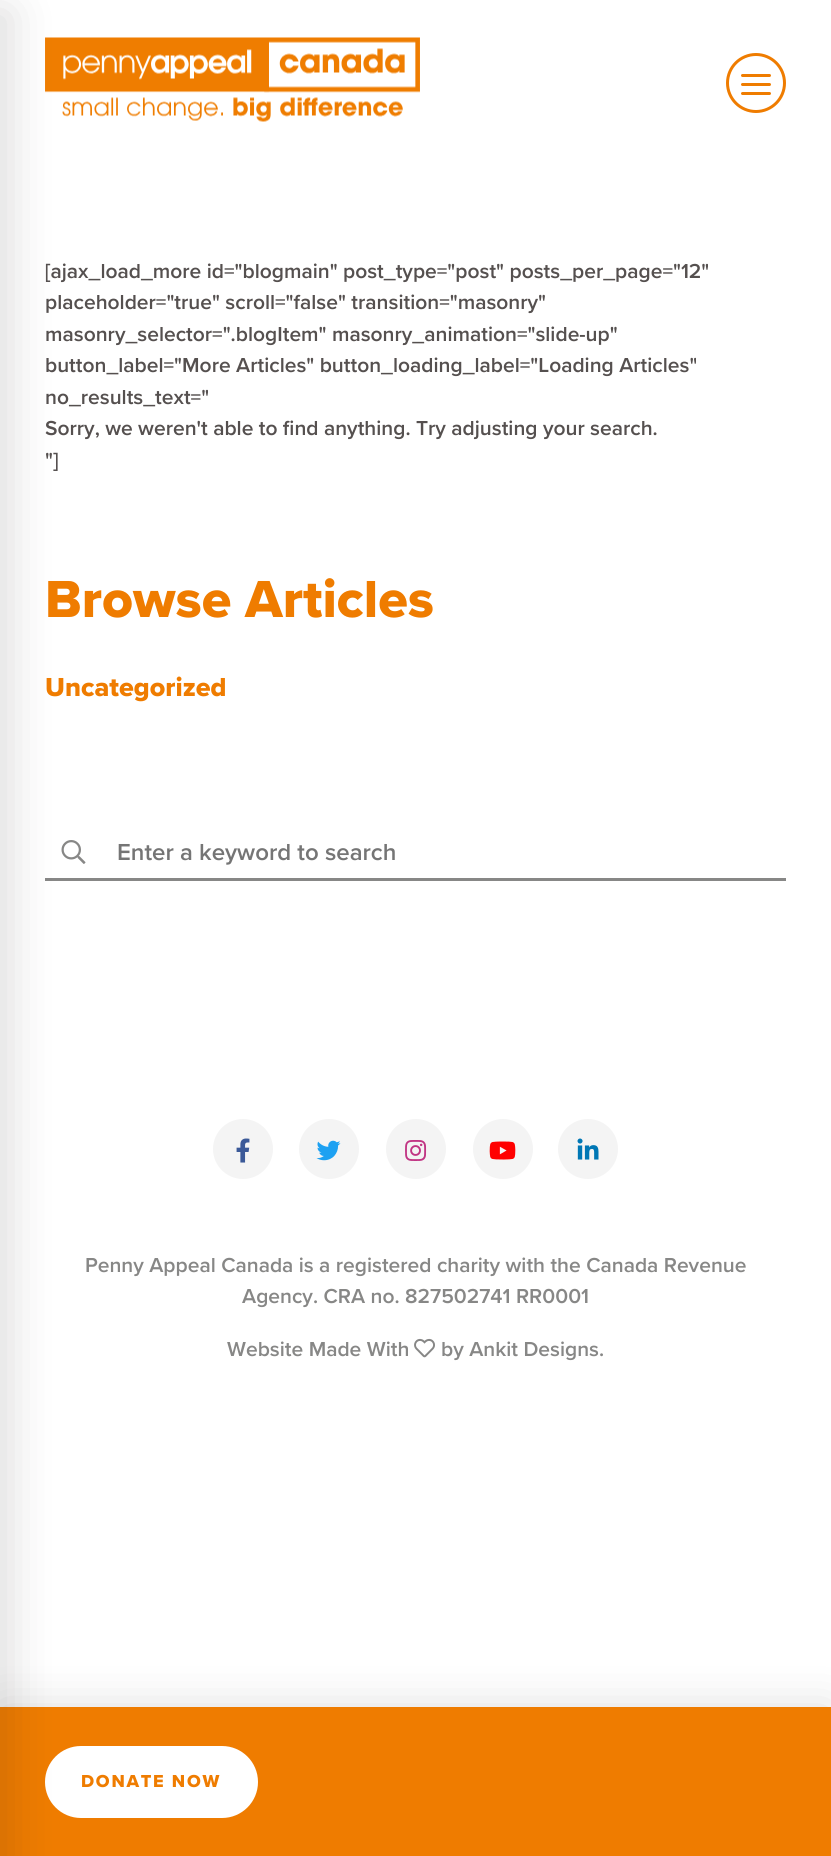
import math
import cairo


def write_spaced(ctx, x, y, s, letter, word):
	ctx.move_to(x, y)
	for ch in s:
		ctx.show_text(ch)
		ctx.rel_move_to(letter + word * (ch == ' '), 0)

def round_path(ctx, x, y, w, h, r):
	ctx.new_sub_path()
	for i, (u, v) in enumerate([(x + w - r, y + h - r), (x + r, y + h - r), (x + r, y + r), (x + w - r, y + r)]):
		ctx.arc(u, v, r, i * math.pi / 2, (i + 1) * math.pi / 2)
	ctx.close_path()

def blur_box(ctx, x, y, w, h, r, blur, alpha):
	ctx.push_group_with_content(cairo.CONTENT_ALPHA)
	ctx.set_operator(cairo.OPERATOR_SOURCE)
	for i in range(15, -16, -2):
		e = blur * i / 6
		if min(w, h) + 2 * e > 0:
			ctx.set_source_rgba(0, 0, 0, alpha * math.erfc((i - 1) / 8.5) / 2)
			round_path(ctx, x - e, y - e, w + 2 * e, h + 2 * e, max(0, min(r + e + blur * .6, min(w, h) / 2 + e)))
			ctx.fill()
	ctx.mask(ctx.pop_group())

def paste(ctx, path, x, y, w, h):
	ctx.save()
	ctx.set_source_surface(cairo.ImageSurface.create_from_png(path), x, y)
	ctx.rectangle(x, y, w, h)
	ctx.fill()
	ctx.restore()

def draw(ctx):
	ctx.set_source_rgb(1, 1, 1)
	ctx.paint()
	paste(ctx, 'media/1.png', 45, 37, 375, 85)
	paste(ctx, 'media/2.png', 61, 840, 25, 24)
	ctx.set_source_rgb(0.529, 0.529, 0.525)
	ctx.rectangle(45, 878, 741, 3)
	ctx.fill()
	ctx.set_source_rgb(0.137, 0.122, 0.125)
	blur_box(ctx, 0, 1707, 831, 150, 0, 22.5, 0.15)
	ctx.set_source_rgb(0.937, 0.486, 0)
	ctx.rectangle(0, 1707, 831, 149)
	ctx.fill()
	ctx.set_source_rgb(1, 1, 1)
	round_path(ctx, 45, 1746, 213, 72, 36)
	ctx.fill()
	ctx.set_source_rgb(0.137, 0.122, 0.125)
	blur_box(ctx, -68, 11, 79, 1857, 0, 22.5, 0.15)
	ctx.arc(756, 83, 28.5, 0, 2 * math.pi)
	ctx.set_source_rgb(0.937, 0.486, 0)
	ctx.set_line_width(3)
	ctx.stroke()
	round_path(ctx, 741, 74, 30, 3, 1.5)
	ctx.fill()
	round_path(ctx, 741, 83, 30, 3, 1.5)
	ctx.fill()
	round_path(ctx, 741, 92, 30, 3, 1.5)
	ctx.fill()
	ctx.select_font_face('Proxima Nova SemiBold')
	ctx.set_font_size(21)
	ctx.set_source_rgb(0.333, 0.314, 0.31)
	for x, y, s in [
		(45, 278, '[ajax_load_more id="blogmain" post_type="post" posts_per_page="12"'),
		(45, 309, 'placeholder="true" scroll="false" transition="masonry"'),
		(45, 341, 'masonry_selector=".blogItem" masonry_animation="slide-up"'),
		(45, 372, 'button_label="More Articles" button_loading_label="Loading Articles"'),
		(45, 404, 'no_results_text="'),
		(45, 435, 'Sorry, we weren\'t able to find anything. Try adjusting your search.'),
		(45, 467, '"]'),
	]:
		ctx.move_to(x, y)
		ctx.show_text(s)
	ctx.select_font_face('Proxima Nova ExtraBold')
	ctx.set_font_size(54)
	ctx.set_source_rgb(0.937, 0.486, 0)
	ctx.move_to(45, 617)
	ctx.show_text('Browse Articles')
	ctx.set_font_size(27)
	ctx.move_to(45, 696)
	ctx.show_text('Uncategorized')
	ctx.select_font_face('Proxima Nova SemiBold')
	ctx.set_font_size(24)
	ctx.set_source_rgb(0.459, 0.459, 0.459)
	ctx.move_to(117, 860)
	ctx.show_text('Enter a keyword to search')
	ctx.set_source_rgb(0.957, 0.957, 0.957)
	ctx.new_path()
	ctx.arc(243, 1149, 30, 0, 2 * math.pi)
	ctx.fill()
	paste(ctx, 'media/3.png', 236, 1138, 14, 25)
	ctx.arc(329, 1149, 30, 0, 2 * math.pi)
	ctx.fill()
	paste(ctx, 'media/4.png', 316, 1140, 25, 21)
	ctx.arc(416, 1149, 30, 0, 2 * math.pi)
	ctx.fill()
	paste(ctx, 'media/5.png', 405, 1140, 22, 21)
	ctx.arc(503, 1149, 30, 0, 2 * math.pi)
	ctx.fill()
	paste(ctx, 'media/6.png', 489, 1141, 27, 19)
	ctx.arc(588, 1149, 30, 0, 2 * math.pi)
	ctx.fill()
	paste(ctx, 'media/7.png', 577, 1138, 22, 22)
	ctx.set_font_size(21)
	ctx.set_source_rgb(0.529, 0.529, 0.525)
	for x, y, s in [
		(85, 1272, 'Penny Appeal Canada is a registered charity with the Canada Revenue'),
		(242, 1303, 'Agency. CRA no. 827502741 RR0001'),
		(227, 1356, 'Website Made With'),
	]:
		ctx.move_to(x, y)
		ctx.show_text(s)
	paste(ctx, 'media/8.png', 414, 1338, 21, 20)
	ctx.move_to(441, 1356)
	ctx.show_text('by Ankit Designs.')
	ctx.select_font_face('Proxima Nova ExtraBold')
	ctx.set_font_size(18)
	ctx.set_source_rgb(0.937, 0.486, 0)
	write_spaced(ctx, 81, 1787, 'DONATE NOW', 1.75, 0)


surface = cairo.ImageSurface(cairo.FORMAT_RGB24, 831, 1856)
ctx = cairo.Context(surface)
options = cairo.FontOptions()
options.set_hint_metrics(cairo.HINT_METRICS_OFF)
options.set_hint_style(cairo.HINT_STYLE_NONE)
ctx.set_font_options(options)
ctx.set_miter_limit(4)
draw(ctx)
surface.write_to_png('image.png')
